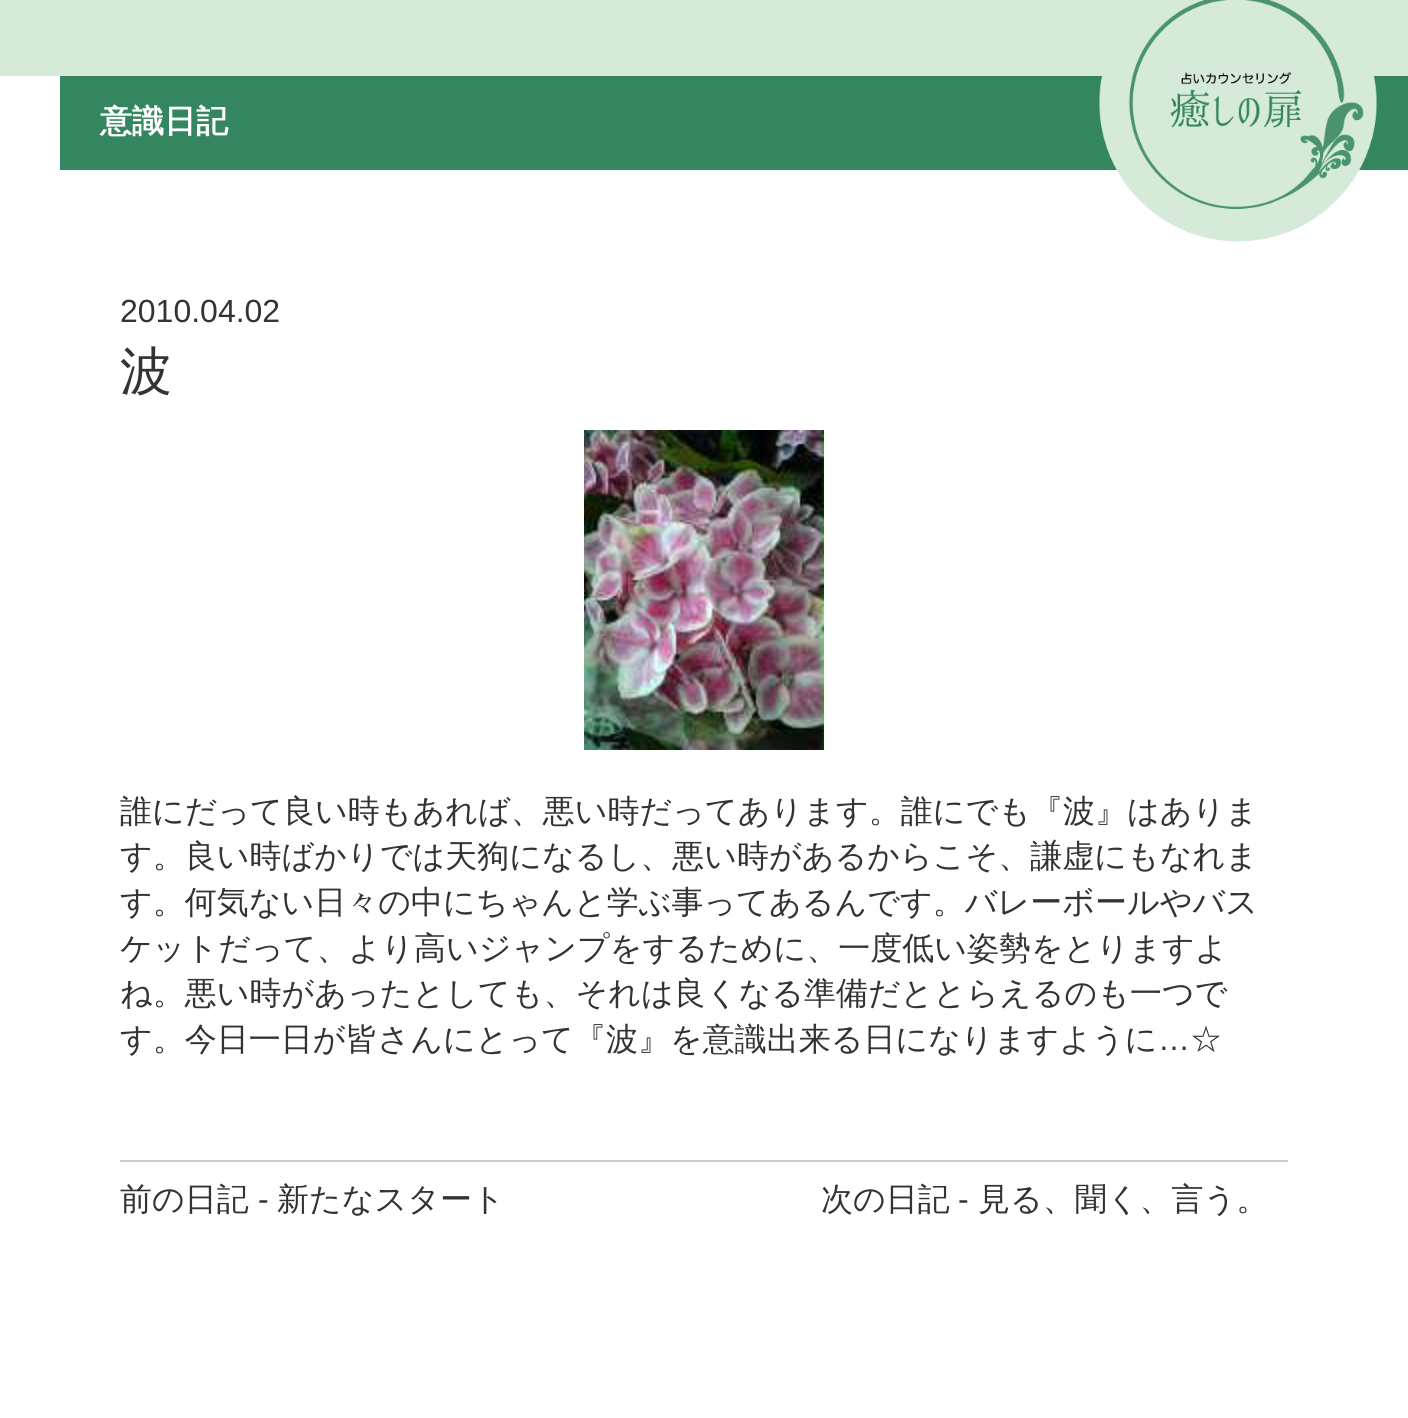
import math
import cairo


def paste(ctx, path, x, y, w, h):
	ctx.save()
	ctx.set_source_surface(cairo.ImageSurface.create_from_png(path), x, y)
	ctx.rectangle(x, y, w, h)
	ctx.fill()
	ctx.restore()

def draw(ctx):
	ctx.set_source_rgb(1, 1, 1)
	ctx.paint()
	ctx.set_source_rgb(0.835, 0.918, 0.847)
	ctx.rectangle(0, 0, 1408, 76)
	ctx.fill()
	ctx.set_source_rgb(0.2, 0.525, 0.373)
	ctx.rectangle(1359, 76, 49, 94)
	ctx.rectangle(60, 76, 1058, 94)
	ctx.fill()
	paste(ctx, 'media/1.png', 1099, 0, 278, 242)
	ctx.select_font_face('WenQuanYi Zen Hei', cairo.FONT_SLANT_NORMAL, cairo.FONT_WEIGHT_BOLD)
	ctx.set_font_size(32)
	ctx.set_source_rgb(1, 1, 1)
	ctx.move_to(100, 132)
	ctx.show_text('意識日記')
	ctx.select_font_face('Liberation Sans')
	ctx.set_source_rgb(0.2, 0.2, 0.2)
	ctx.move_to(120, 322)
	ctx.show_text('2010.04.02')
	ctx.select_font_face('WenQuanYi Zen Hei Medium')
	ctx.set_font_size(52)
	ctx.move_to(120, 389)
	ctx.show_text('波')
	paste(ctx, 'media/2.png', 584, 430, 240, 320)
	ctx.set_font_size(32)
	for x, y, s in [
		(120, 822, '誰にだって良い時もあれば、悪い時だってあります。誰にでも『波』はありま'),
		(120, 867, 'す。良い時ばかりでは天狗になるし、悪い時があるからこそ、謙虚にもなれま'),
		(120, 913, 'す。何気ない日々の中にちゃんと学ぶ事ってあるんです。バレーボールやバス'),
		(120, 959, 'ケットだって、より高いジャンプをするために、一度低い姿勢をとりますよ'),
		(120, 1004, 'ね。悪い時があったとしても、それは良くなる準備だととらえるのも一つで'),
		(120, 1050, 'す。今日一日が皆さんにとって『波』を意識出来る日になりますように'),
	]:
		ctx.move_to(x, y)
		ctx.show_text(s)
	ctx.select_font_face('Liberation Sans')
	ctx.move_to(1158, 1050)
	ctx.show_text('…')
	ctx.select_font_face('WenQuanYi Zen Hei Medium')
	ctx.move_to(1190, 1050)
	ctx.show_text('☆')
	ctx.set_source_rgb(0.8, 0.8, 0.8)
	ctx.rectangle(120, 1160, 1168, 2)
	ctx.fill()
	ctx.set_source_rgb(0.2, 0.2, 0.2)
	ctx.move_to(120, 1210)
	ctx.show_text('前の日記')
	ctx.select_font_face('Liberation Sans')
	ctx.move_to(258, 1210)
	ctx.show_text('-')
	ctx.select_font_face('WenQuanYi Zen Hei Medium')
	ctx.move_to(277, 1210)
	ctx.show_text('新たなスタート')
	ctx.move_to(821, 1210)
	ctx.show_text('次の日記')
	ctx.select_font_face('Liberation Sans')
	ctx.move_to(958, 1210)
	ctx.show_text('-')
	ctx.select_font_face('WenQuanYi Zen Hei Medium')
	ctx.move_to(978, 1210)
	ctx.show_text('見る、聞く、言う。')


surface = cairo.ImageSurface(cairo.FORMAT_RGB24, 1408, 1418)
ctx = cairo.Context(surface)
options = cairo.FontOptions()
options.set_hint_metrics(cairo.HINT_METRICS_OFF)
options.set_hint_style(cairo.HINT_STYLE_NONE)
ctx.set_font_options(options)
ctx.set_miter_limit(4)
draw(ctx)
surface.write_to_png('image.png')
